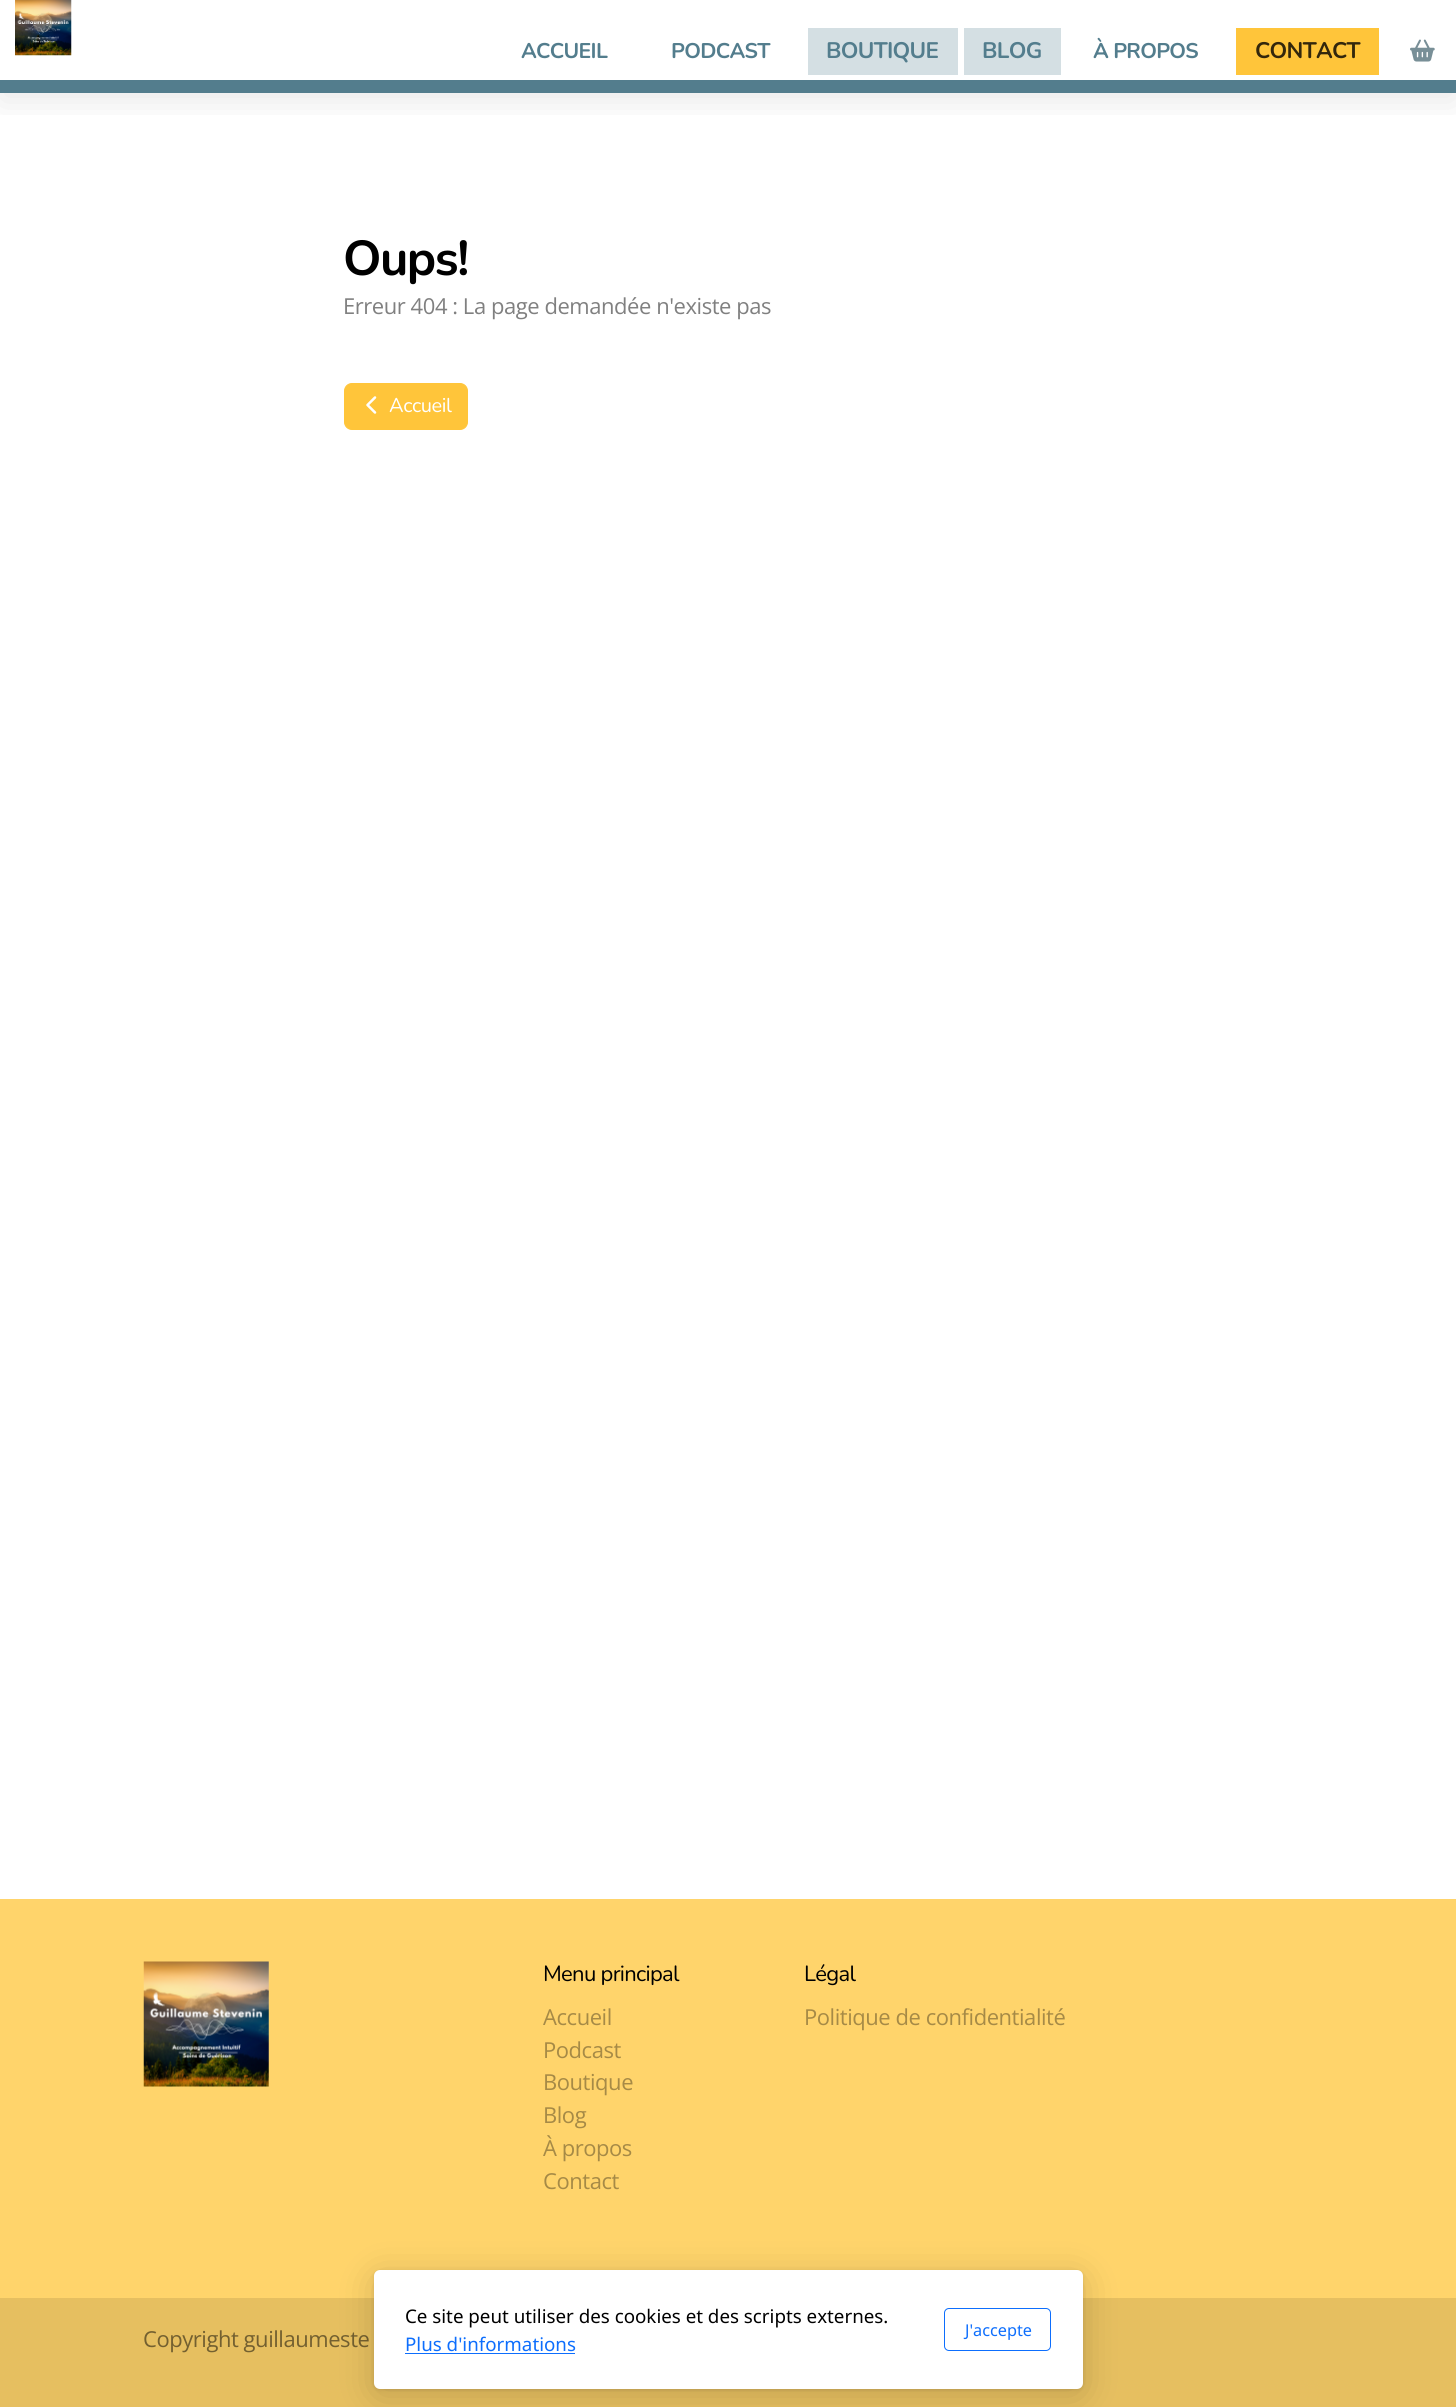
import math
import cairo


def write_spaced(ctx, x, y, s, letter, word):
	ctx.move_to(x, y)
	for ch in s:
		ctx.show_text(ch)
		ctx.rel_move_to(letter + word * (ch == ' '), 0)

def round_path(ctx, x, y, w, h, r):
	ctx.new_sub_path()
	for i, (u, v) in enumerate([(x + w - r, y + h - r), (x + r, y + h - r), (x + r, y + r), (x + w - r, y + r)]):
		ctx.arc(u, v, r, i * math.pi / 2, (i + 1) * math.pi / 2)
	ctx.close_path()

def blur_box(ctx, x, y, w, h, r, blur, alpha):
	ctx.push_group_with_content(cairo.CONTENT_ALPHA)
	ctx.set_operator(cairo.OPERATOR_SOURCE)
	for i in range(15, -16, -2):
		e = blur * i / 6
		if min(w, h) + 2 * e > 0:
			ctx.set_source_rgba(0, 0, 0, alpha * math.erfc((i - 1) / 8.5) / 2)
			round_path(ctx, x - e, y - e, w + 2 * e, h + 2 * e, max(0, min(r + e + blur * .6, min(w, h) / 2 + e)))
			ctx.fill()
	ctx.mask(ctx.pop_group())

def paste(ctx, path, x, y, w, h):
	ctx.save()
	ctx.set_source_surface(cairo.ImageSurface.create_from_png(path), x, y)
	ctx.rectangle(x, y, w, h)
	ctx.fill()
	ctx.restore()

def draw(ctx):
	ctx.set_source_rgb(1, 1, 1)
	ctx.paint()
	ctx.save()
	ctx.rectangle(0, 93, 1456, 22)
	ctx.clip()
	ctx.set_source_rgb(0, 0, 0)
	blur_box(ctx, 0, -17, 1456, 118, 0, 18, 0.09)
	ctx.restore()
	ctx.set_source_rgb(0.325, 0.49, 0.553)
	ctx.rectangle(0, 80, 1456, 13)
	ctx.fill()
	paste(ctx, 'media/1.png', 15, 0, 57, 56)
	ctx.select_font_face('Nunito ExtraLight')
	ctx.set_font_size(21.25)
	write_spaced(ctx, 521, 58, 'ACCUEIL', -0.7, 0)
	write_spaced(ctx, 671, 58, 'PODCAST', -0.7, 0)
	ctx.set_source_rgb(0.831, 0.875, 0.89)
	ctx.rectangle(808, 28, 150, 47)
	ctx.fill()
	ctx.set_font_size(22.5)
	ctx.set_source_rgb(0.325, 0.49, 0.553)
	write_spaced(ctx, 826, 58, 'BOUTIQUE', -0.7, 0)
	ctx.set_source_rgb(0.831, 0.875, 0.89)
	ctx.rectangle(964, 28, 97, 47)
	ctx.fill()
	ctx.set_source_rgb(0.325, 0.49, 0.553)
	write_spaced(ctx, 982, 58, 'BLOG', -0.7, 0)
	ctx.set_font_size(21.25)
	write_spaced(ctx, 1093, 58, 'À PROPOS', -0.7, 0)
	ctx.set_source_rgb(1, 0.773, 0.227)
	ctx.rectangle(1236, 28, 143, 47)
	ctx.fill()
	ctx.set_font_size(22.5)
	ctx.set_source_rgb(0.2, 0.153, 0.047)
	write_spaced(ctx, 1255, 58, 'CONTACT', -0.7, 0)
	paste(ctx, 'media/2.png', 1410, 39, 25, 23)
	ctx.set_font_size(49)
	ctx.set_source_rgb(0, 0, 0)
	write_spaced(ctx, 343, 275, 'Oups!', -1.5, 0)
	ctx.select_font_face('Open Sans')
	ctx.set_font_size(22)
	ctx.set_source_rgb(0.502, 0.502, 0.502)
	write_spaced(ctx, 343, 314, 'Erreur 404 : La page demandée n\'existe pas', -0.45, 0)
	ctx.set_source_rgb(1, 0.773, 0.227)
	round_path(ctx, 344.5, 383.5, 123, 46, 7.5)
	ctx.fill_preserve()
	ctx.set_line_width(1)
	ctx.stroke()
	paste(ctx, 'media/3.png', 366, 396, 11, 18)
	ctx.select_font_face('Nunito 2 ExtraLight')
	ctx.set_font_size(20)
	ctx.set_source_rgb(1, 1, 1)
	write_spaced(ctx, 389, 412, 'Accueil', -0.45, 0)
	ctx.set_source_rgb(1, 0.831, 0.42)
	ctx.rectangle(0, 1899, 1456, 399)
	ctx.fill()
	paste(ctx, 'media/4.png', 143, 1961, 126, 126)
	ctx.set_font_size(22)
	ctx.set_source_rgb(0, 0, 0)
	write_spaced(ctx, 543, 1981, 'Menu principal', -0.7, 0)
	ctx.select_font_face('Open Sans')
	ctx.set_source_rgb(0.651, 0.541, 0.275)
	for x, y, s in [
		(543, 2025, 'Accueil'),
		(543, 2058, 'Podcast'),
		(543, 2090, 'Boutique'),
		(543, 2123, 'Blog'),
		(543, 2156, 'À propos'),
		(543, 2189, 'Contact'),
	]:
		write_spaced(ctx, x, y, s, -0.45, 0)
	ctx.select_font_face('Nunito 2 ExtraLight')
	ctx.set_source_rgb(0, 0, 0)
	write_spaced(ctx, 804, 1981, 'Légal', -0.7, 0)
	ctx.select_font_face('Open Sans')
	ctx.set_source_rgb(0.651, 0.541, 0.275)
	write_spaced(ctx, 804, 2025, 'Politique de confidentialité', -0.45, 0)
	ctx.set_source_rgb(0.902, 0.749, 0.376)
	ctx.rectangle(0, 2298, 1456, 109)
	ctx.fill()
	ctx.set_source_rgb(0.451, 0.376, 0.188)
	write_spaced(ctx, 143, 2347, 'Copyright guillaumeste', -0.45, 0)
	ctx.set_source_rgb(0, 0, 0)
	blur_box(ctx, 374, 2276, 709, 119, 6, 19, 0.16)
	blur_box(ctx, 374, 2271, 709, 119, 6, 2, 0.1)
	ctx.set_source_rgb(1, 1, 1)
	round_path(ctx, 374, 2270, 709, 119, 6)
	ctx.fill()
	ctx.select_font_face('Noto Sans')
	ctx.set_font_size(18.75)
	ctx.set_source_rgb(0, 0, 0)
	ctx.move_to(405, 2323)
	ctx.show_text('Ce site peut utiliser des cookies et des scripts externes.')
	ctx.set_source_rgb(0.051, 0.431, 0.992)
	ctx.move_to(405, 2351)
	ctx.show_text('Plus d\'informations')
	ctx.rectangle(405, 2353, 170, 1)
	ctx.fill()
	round_path(ctx, 944.5, 2308.5, 106, 42, 4.5)
	ctx.stroke()
	ctx.set_font_size(16.25)
	ctx.move_to(965, 2336)
	ctx.show_text('J\'accepte')


surface = cairo.ImageSurface(cairo.FORMAT_RGB24, 1456, 2407)
ctx = cairo.Context(surface)
options = cairo.FontOptions()
options.set_hint_metrics(cairo.HINT_METRICS_OFF)
options.set_hint_style(cairo.HINT_STYLE_NONE)
ctx.set_font_options(options)
ctx.set_miter_limit(4)
draw(ctx)
surface.write_to_png('image.png')
